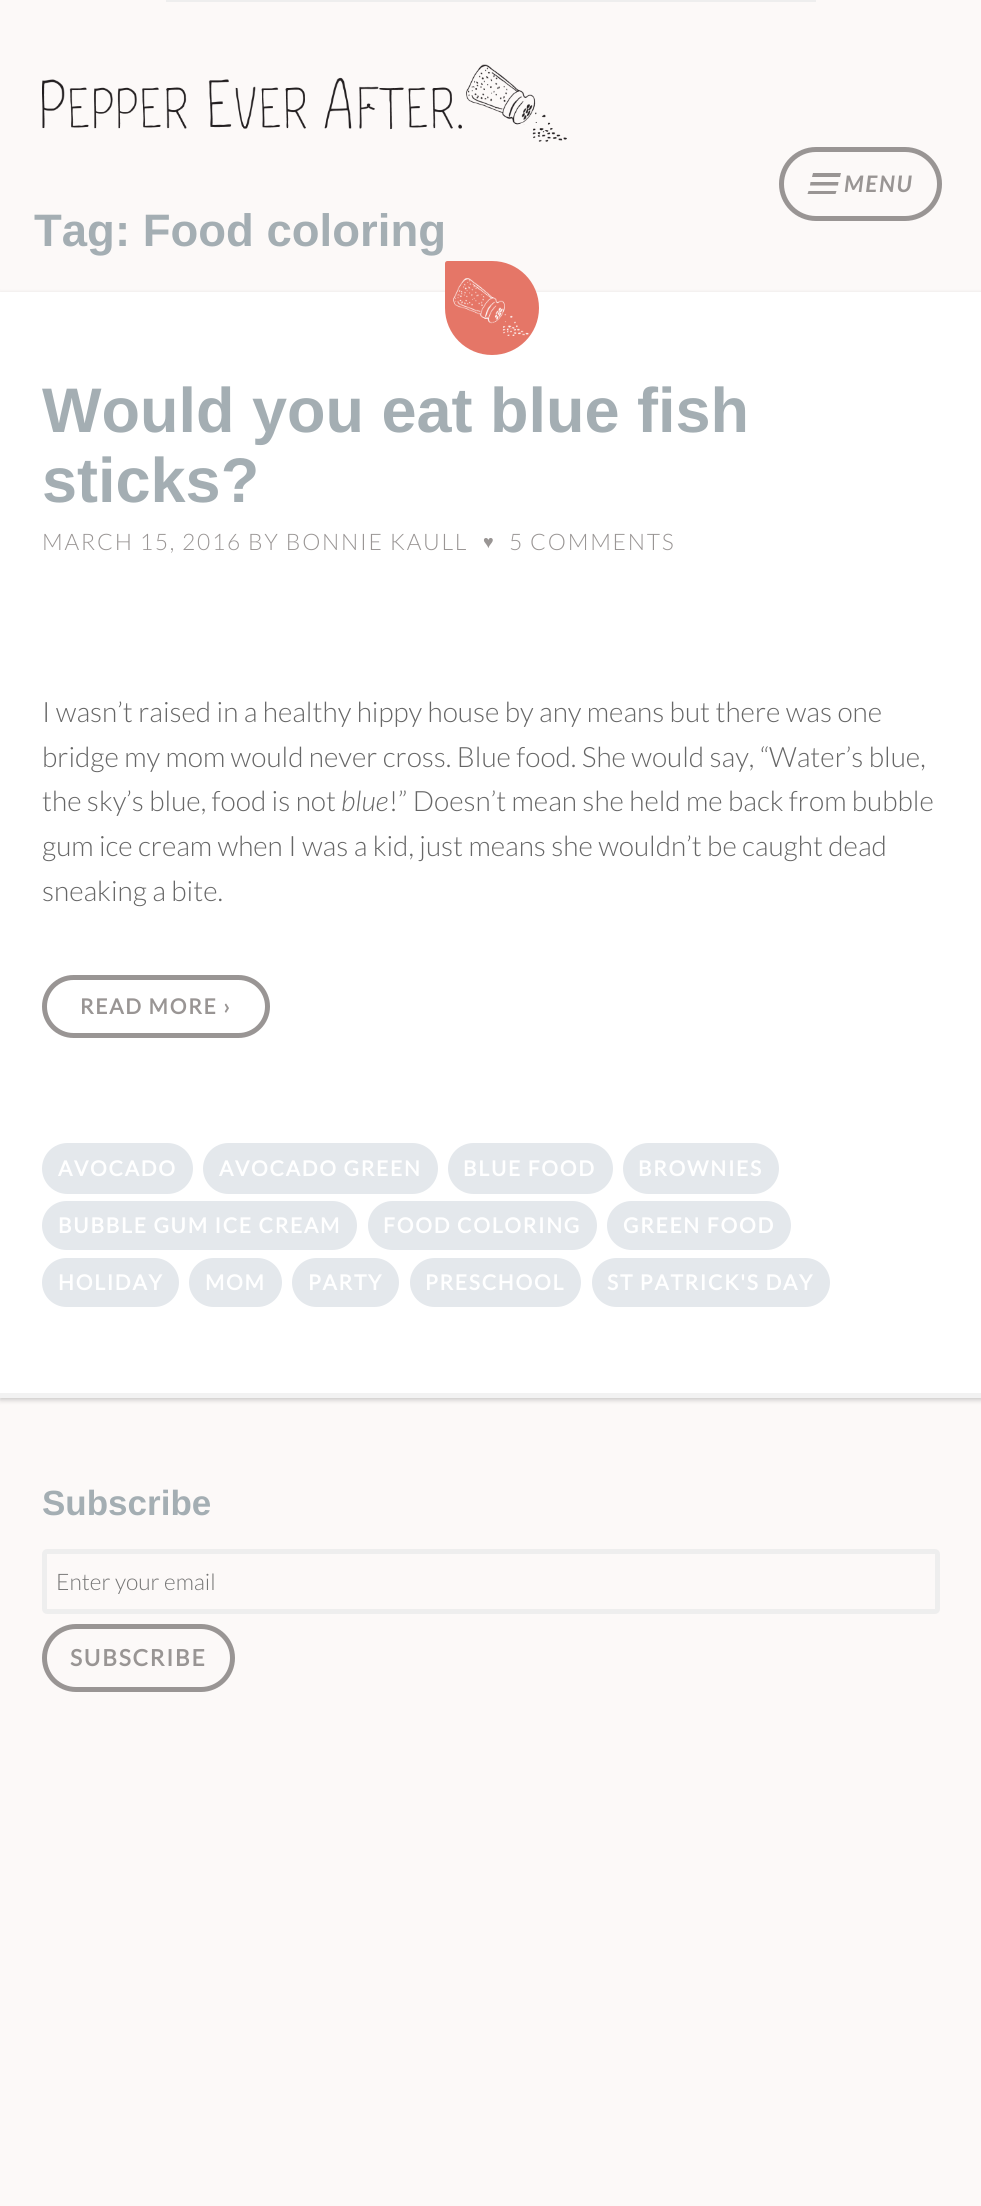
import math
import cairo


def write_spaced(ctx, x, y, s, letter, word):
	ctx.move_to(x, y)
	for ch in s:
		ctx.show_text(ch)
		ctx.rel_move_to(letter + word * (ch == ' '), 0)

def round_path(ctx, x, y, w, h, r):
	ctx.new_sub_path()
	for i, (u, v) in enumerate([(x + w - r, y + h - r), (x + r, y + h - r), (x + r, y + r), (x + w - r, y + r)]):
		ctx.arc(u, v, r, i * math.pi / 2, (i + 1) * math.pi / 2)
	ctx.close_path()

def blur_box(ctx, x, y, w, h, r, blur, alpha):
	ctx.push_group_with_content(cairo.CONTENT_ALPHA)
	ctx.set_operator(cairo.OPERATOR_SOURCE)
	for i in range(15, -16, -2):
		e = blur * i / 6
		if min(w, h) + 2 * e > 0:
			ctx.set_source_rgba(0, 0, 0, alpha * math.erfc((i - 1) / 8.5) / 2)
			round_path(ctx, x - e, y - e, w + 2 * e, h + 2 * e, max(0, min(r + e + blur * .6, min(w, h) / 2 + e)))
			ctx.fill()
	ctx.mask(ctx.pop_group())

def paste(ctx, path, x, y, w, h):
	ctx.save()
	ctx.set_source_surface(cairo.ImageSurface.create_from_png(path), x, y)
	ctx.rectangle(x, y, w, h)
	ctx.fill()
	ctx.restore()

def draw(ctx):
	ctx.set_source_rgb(0.988, 0.973, 0.969)
	ctx.paint()
	paste(ctx, 'media/1.png', 42, 64, 525, 78)
	ctx.set_source_rgb(0.933, 0.933, 0.933)
	ctx.rectangle(166, 0, 650, 2)
	ctx.fill()
	round_path(ctx, 781.5, 149.5, 158, 69, 34.5)
	ctx.set_source_rgb(0.6, 0.584, 0.58)
	ctx.set_line_width(5)
	ctx.stroke()
	ctx.new_path()
	ctx.move_to(807.5, 194)
	ctx.line_to(808.5, 191)
	ctx.line_to(836.5, 191)
	ctx.line_to(835.5, 194)
	ctx.close_path()
	ctx.move_to(813, 173)
	ctx.line_to(841, 173)
	ctx.line_to(840, 177)
	ctx.line_to(812, 177)
	ctx.close_path()
	ctx.move_to(810, 185.5)
	ctx.line_to(810.5, 182)
	ctx.line_to(838.5, 182)
	ctx.line_to(838, 185.5)
	ctx.close_path()
	ctx.fill()
	ctx.select_font_face('Lato', cairo.FONT_SLANT_ITALIC, cairo.FONT_WEIGHT_BOLD)
	ctx.set_font_size(22.75)
	write_spaced(ctx, 844, 192, 'MENU', 1.75, 0)
	ctx.select_font_face('Liberation Sans', cairo.FONT_SLANT_NORMAL, cairo.FONT_WEIGHT_BOLD)
	ctx.set_font_size(45.5)
	ctx.set_source_rgb(0.643, 0.682, 0.702)
	ctx.move_to(34, 246)
	ctx.show_text('Tag: Food coloring')
	ctx.set_source_rgb(0, 0, 0)
	blur_box(ctx, 0, 294, 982, 1106, 0, 2.5, 0.2)
	ctx.set_source_rgb(1, 1, 1)
	ctx.rectangle(0, 292, 981, 1101)
	ctx.fill()
	ctx.set_source_rgb(0.949, 0.949, 0.949)
	ctx.rectangle(0, 1393, 981, 5)
	ctx.fill()
	ctx.set_source_rgb(0.898, 0.463, 0.404)
	ctx.new_path()
	ctx.move_to(447.5, 261)
	ctx.line_to(492, 261)
	ctx.curve_to(518, 261, 539, 282, 539, 308)
	ctx.curve_to(539, 334, 518, 355, 492, 355)
	ctx.curve_to(466, 355, 445, 334, 445, 308)
	ctx.line_to(445, 263.5)
	ctx.curve_to(445, 262, 446, 261, 447.5, 261)
	ctx.close_path()
	ctx.fill()
	paste(ctx, 'media/2.png', 453, 278, 76, 58)
	ctx.set_font_size(63)
	ctx.set_source_rgb(0.643, 0.682, 0.702)
	ctx.move_to(42, 432)
	ctx.show_text('Would you eat blue fish')
	ctx.move_to(42, 502)
	ctx.show_text('sticks?')
	ctx.select_font_face('Lato Light')
	ctx.set_font_size(22.75)
	ctx.set_source_rgb(0.6, 0.584, 0.58)
	write_spaced(ctx, 42, 550, 'MARCH 15, 2016 BY BONNIE KAULL', 1.75, 0)
	ctx.select_font_face('Liberation Sans')
	ctx.set_font_size(18)
	write_spaced(ctx, 483, 548, '♥', 1.75, 0)
	ctx.select_font_face('Lato Light')
	ctx.set_font_size(22.75)
	write_spaced(ctx, 509, 550, '5 COMMENTS', 1.75, 0)
	ctx.set_font_size(28)
	ctx.set_source_rgb(0.4, 0.4, 0.4)
	for x, y, s in [
		(42, 722, 'I wasn’t raised in a healthy hippy house by any means but there was one'),
		(42, 767, 'bridge my mom would never cross. Blue food. She would say, “Water’s blue,'),
		(42, 811, 'the sky’s blue, food is not'),
	]:
		ctx.move_to(x, y)
		ctx.show_text(s)
	ctx.select_font_face('Lato Light', cairo.FONT_SLANT_ITALIC)
	ctx.move_to(341, 811)
	ctx.show_text('blue')
	ctx.select_font_face('Lato Light')
	for x, y, s in [
		(389, 811, '!” Doesn’t mean she held me back from bubble'),
		(42, 856, 'gum ice cream when I was a kid, just means she wouldn’t be caught dead'),
		(42, 901, 'sneaking a bite.'),
	]:
		ctx.move_to(x, y)
		ctx.show_text(s)
	round_path(ctx, 44.5, 977.5, 223, 58, 29)
	ctx.set_source_rgb(0.6, 0.584, 0.58)
	ctx.stroke()
	ctx.select_font_face('Lato', cairo.FONT_SLANT_NORMAL, cairo.FONT_WEIGHT_BOLD)
	ctx.set_font_size(21)
	write_spaced(ctx, 80, 1014, 'READ MORE ›', 1.75, 0)
	ctx.set_source_rgb(0.894, 0.91, 0.922)
	round_path(ctx, 42, 1143, 151, 51, 25.5)
	ctx.fill()
	ctx.set_source_rgb(1, 1, 1)
	write_spaced(ctx, 58, 1176, 'AVOCADO', 1.75, 0)
	ctx.set_source_rgb(0.894, 0.91, 0.922)
	round_path(ctx, 203, 1143, 235, 51, 25.5)
	ctx.fill()
	ctx.set_source_rgb(1, 1, 1)
	write_spaced(ctx, 219, 1176, 'AVOCADO GREEN', 1.75, 0)
	ctx.set_source_rgb(0.894, 0.91, 0.922)
	round_path(ctx, 448, 1143, 165, 51, 25.5)
	ctx.fill()
	ctx.set_source_rgb(1, 1, 1)
	write_spaced(ctx, 463, 1176, 'BLUE FOOD', 1.75, 0)
	ctx.set_source_rgb(0.894, 0.91, 0.922)
	round_path(ctx, 623, 1143, 156, 51, 25.5)
	ctx.fill()
	ctx.set_source_rgb(1, 1, 1)
	write_spaced(ctx, 638, 1176, 'BROWNIES', 1.75, 0)
	ctx.set_source_rgb(0.894, 0.91, 0.922)
	round_path(ctx, 42, 1201, 315, 49, 24.5)
	ctx.fill()
	ctx.set_source_rgb(1, 1, 1)
	write_spaced(ctx, 58, 1233, 'BUBBLE GUM ICE CREAM', 1.75, 0)
	ctx.set_source_rgb(0.894, 0.91, 0.922)
	round_path(ctx, 368, 1201, 229, 49, 24.5)
	ctx.fill()
	ctx.set_source_rgb(1, 1, 1)
	write_spaced(ctx, 383, 1233, 'FOOD COLORING', 1.75, 0)
	ctx.set_source_rgb(0.894, 0.91, 0.922)
	round_path(ctx, 607, 1201, 184, 49, 24.5)
	ctx.fill()
	ctx.set_source_rgb(1, 1, 1)
	write_spaced(ctx, 623, 1233, 'GREEN FOOD', 1.75, 0)
	ctx.set_source_rgb(0.894, 0.91, 0.922)
	round_path(ctx, 42, 1258, 137, 49, 24.5)
	ctx.fill()
	ctx.set_source_rgb(1, 1, 1)
	write_spaced(ctx, 58, 1290, 'HOLIDAY', 1.75, 0)
	ctx.set_source_rgb(0.894, 0.91, 0.922)
	round_path(ctx, 189, 1258, 93, 49, 24.5)
	ctx.fill()
	ctx.set_source_rgb(1, 1, 1)
	write_spaced(ctx, 205, 1290, 'MOM', 1.75, 0)
	ctx.set_source_rgb(0.894, 0.91, 0.922)
	round_path(ctx, 292, 1258, 107, 49, 24.5)
	ctx.fill()
	ctx.set_source_rgb(1, 1, 1)
	write_spaced(ctx, 308, 1290, 'PARTY', 1.75, 0)
	ctx.set_source_rgb(0.894, 0.91, 0.922)
	round_path(ctx, 410, 1258, 171, 49, 24.5)
	ctx.fill()
	ctx.set_source_rgb(1, 1, 1)
	write_spaced(ctx, 425, 1290, 'PRESCHOOL', 1.75, 0)
	ctx.set_source_rgb(0.894, 0.91, 0.922)
	round_path(ctx, 592, 1258, 238, 49, 24.5)
	ctx.fill()
	ctx.set_source_rgb(1, 1, 1)
	write_spaced(ctx, 607, 1290, 'ST PATRICK\'S DAY', 1.75, 0)
	ctx.select_font_face('Liberation Sans', cairo.FONT_SLANT_NORMAL, cairo.FONT_WEIGHT_BOLD)
	ctx.set_font_size(35)
	ctx.set_source_rgb(0.643, 0.682, 0.702)
	ctx.move_to(42, 1515)
	ctx.show_text('Subscribe')
	round_path(ctx, 44.5, 1551.5, 893, 60, 2.5)
	ctx.set_source_rgb(0.933, 0.933, 0.933)
	ctx.stroke()
	ctx.select_font_face('Lato Light')
	ctx.set_font_size(22.75)
	ctx.set_source_rgb(0.459, 0.459, 0.459)
	ctx.move_to(56, 1590)
	ctx.show_text('Enter your email')
	round_path(ctx, 44.5, 1626.5, 188, 63, 31.5)
	ctx.set_source_rgb(0.6, 0.584, 0.58)
	ctx.stroke()
	ctx.select_font_face('Lato', cairo.FONT_SLANT_NORMAL, cairo.FONT_WEIGHT_BOLD)
	write_spaced(ctx, 70, 1666, 'SUBSCRIBE', 1.75, 0)


surface = cairo.ImageSurface(cairo.FORMAT_RGB24, 981, 2206)
ctx = cairo.Context(surface)
options = cairo.FontOptions()
options.set_hint_metrics(cairo.HINT_METRICS_OFF)
options.set_hint_style(cairo.HINT_STYLE_NONE)
ctx.set_font_options(options)
ctx.set_miter_limit(4)
draw(ctx)
surface.write_to_png('image.png')
